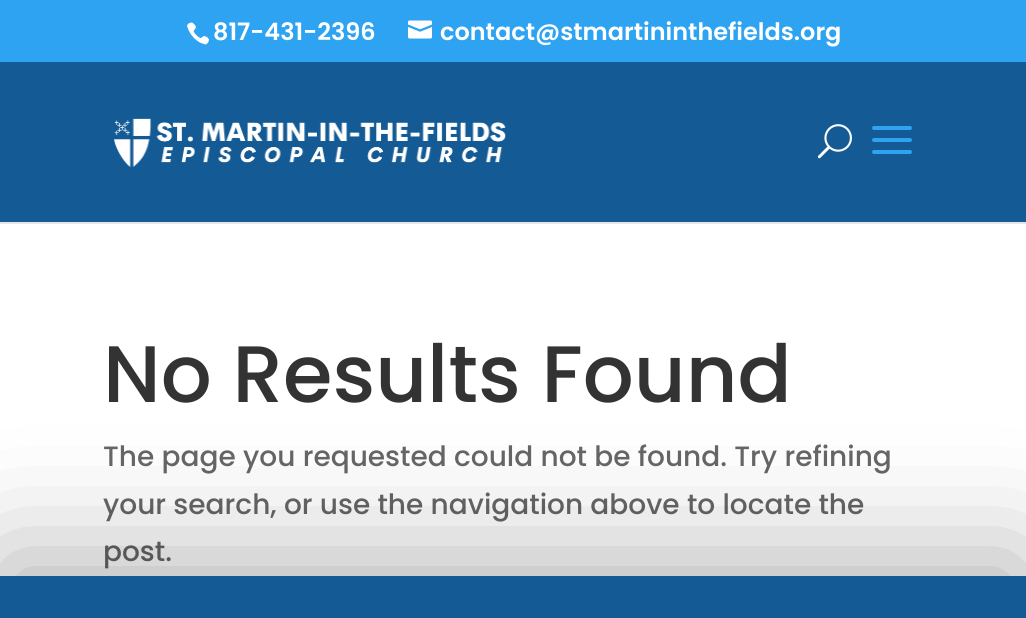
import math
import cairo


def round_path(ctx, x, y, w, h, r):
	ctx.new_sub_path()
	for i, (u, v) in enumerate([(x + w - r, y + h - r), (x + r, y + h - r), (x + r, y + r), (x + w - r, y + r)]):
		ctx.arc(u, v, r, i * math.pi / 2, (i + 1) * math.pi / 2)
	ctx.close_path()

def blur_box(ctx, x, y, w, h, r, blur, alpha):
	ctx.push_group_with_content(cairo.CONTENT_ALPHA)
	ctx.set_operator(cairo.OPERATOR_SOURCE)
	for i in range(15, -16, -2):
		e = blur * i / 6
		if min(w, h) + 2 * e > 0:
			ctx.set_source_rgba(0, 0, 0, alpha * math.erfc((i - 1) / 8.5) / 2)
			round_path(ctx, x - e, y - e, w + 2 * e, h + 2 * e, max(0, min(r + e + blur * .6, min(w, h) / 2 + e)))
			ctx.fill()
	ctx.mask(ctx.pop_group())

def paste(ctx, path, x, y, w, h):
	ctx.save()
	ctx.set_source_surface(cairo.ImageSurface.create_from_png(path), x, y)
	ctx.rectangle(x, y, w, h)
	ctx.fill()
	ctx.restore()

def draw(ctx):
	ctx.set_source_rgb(1, 1, 1)
	ctx.paint()
	ctx.set_source_rgb(0.18, 0.639, 0.949)
	ctx.rectangle(0, 0, 1026, 62)
	ctx.fill()
	paste(ctx, 'media/1.png', 187, 22, 22, 23)
	ctx.select_font_face('Poppins SemiBold')
	ctx.set_font_size(24)
	ctx.set_source_rgb(1, 1, 1)
	ctx.move_to(213, 40)
	ctx.show_text('817-431-2396')
	paste(ctx, 'media/2.png', 408, 20, 24, 19)
	ctx.move_to(440, 40)
	ctx.show_text('contact@stmartininthefields.org')
	ctx.set_source_rgb(0.902, 0.902, 0.902)
	ctx.rectangle(0, 222, 1026, 2)
	ctx.fill()
	ctx.set_source_rgb(0.082, 0.357, 0.588)
	ctx.rectangle(0, 62, 1026, 160)
	ctx.fill()
	paste(ctx, 'media/3.png', 114, 118, 392, 49)
	paste(ctx, 'media/4.png', 817, 124, 35, 35)
	paste(ctx, 'media/5.png', 872, 126, 40, 28)
	ctx.select_font_face('Poppins Medium')
	ctx.set_font_size(80)
	ctx.set_source_rgb(0.2, 0.2, 0.2)
	ctx.move_to(103, 402)
	ctx.show_text('No Results Found')
	ctx.set_font_size(28)
	ctx.set_source_rgb(0.4, 0.4, 0.4)
	for x, y, s in [
		(103, 466, 'The page you requested could not be found. Try refining'),
		(103, 514, 'your search, or use the navigation above to locate the'),
		(103, 561, 'post.'),
	]:
		ctx.move_to(x, y)
		ctx.show_text(s)
	ctx.set_source_rgb(0, 0, 0)
	blur_box(ctx, 0, 556, 1026, 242, 0, 60, 0.3)
	ctx.set_source_rgb(0.082, 0.357, 0.588)
	ctx.rectangle(0, 576, 1026, 42)
	ctx.fill()


surface = cairo.ImageSurface(cairo.FORMAT_RGB24, 1026, 618)
ctx = cairo.Context(surface)
options = cairo.FontOptions()
options.set_hint_metrics(cairo.HINT_METRICS_OFF)
options.set_hint_style(cairo.HINT_STYLE_NONE)
ctx.set_font_options(options)
ctx.set_miter_limit(4)
draw(ctx)
surface.write_to_png('image.png')
